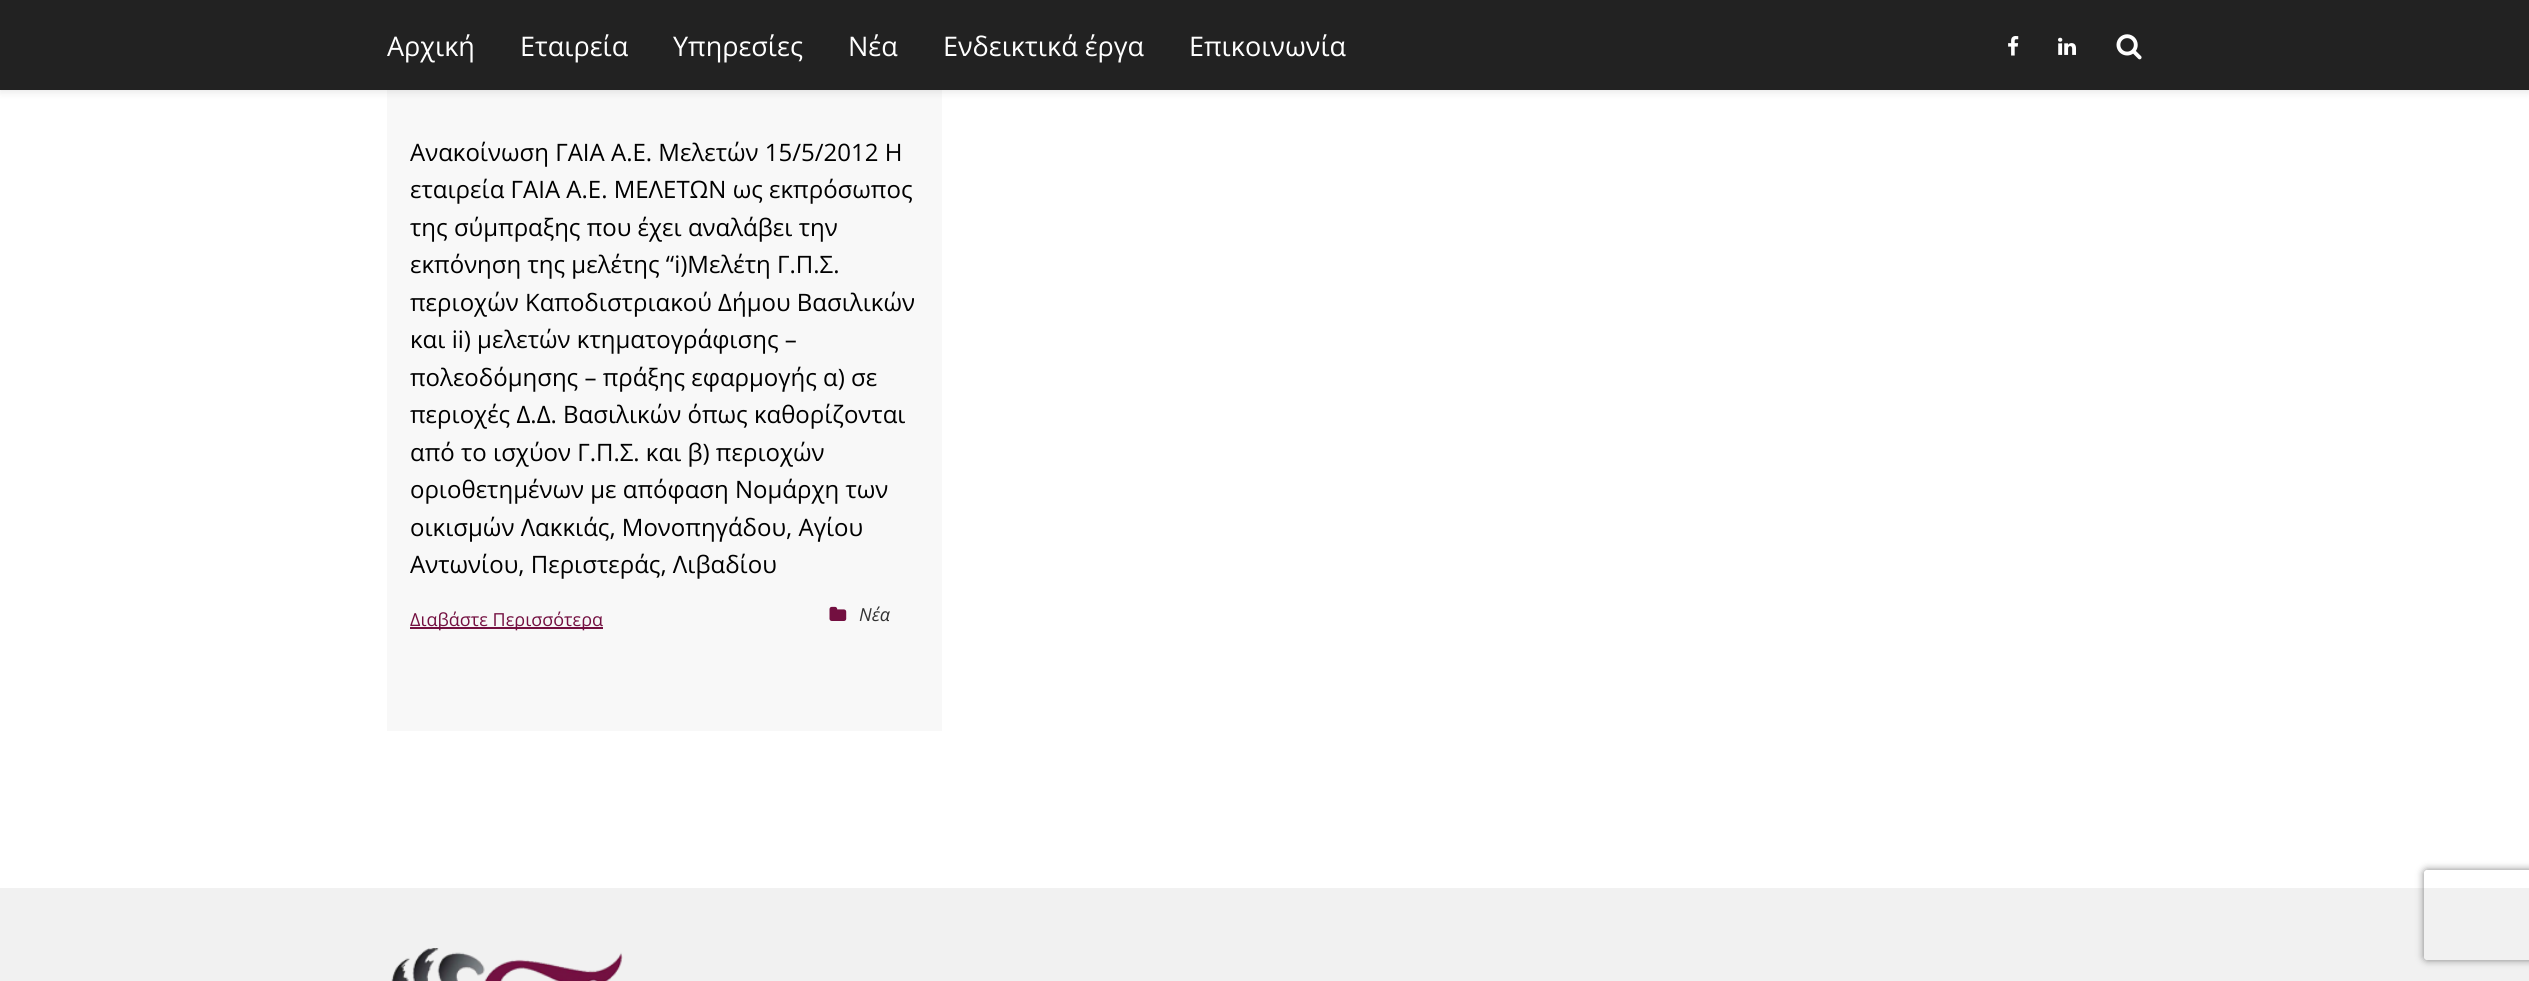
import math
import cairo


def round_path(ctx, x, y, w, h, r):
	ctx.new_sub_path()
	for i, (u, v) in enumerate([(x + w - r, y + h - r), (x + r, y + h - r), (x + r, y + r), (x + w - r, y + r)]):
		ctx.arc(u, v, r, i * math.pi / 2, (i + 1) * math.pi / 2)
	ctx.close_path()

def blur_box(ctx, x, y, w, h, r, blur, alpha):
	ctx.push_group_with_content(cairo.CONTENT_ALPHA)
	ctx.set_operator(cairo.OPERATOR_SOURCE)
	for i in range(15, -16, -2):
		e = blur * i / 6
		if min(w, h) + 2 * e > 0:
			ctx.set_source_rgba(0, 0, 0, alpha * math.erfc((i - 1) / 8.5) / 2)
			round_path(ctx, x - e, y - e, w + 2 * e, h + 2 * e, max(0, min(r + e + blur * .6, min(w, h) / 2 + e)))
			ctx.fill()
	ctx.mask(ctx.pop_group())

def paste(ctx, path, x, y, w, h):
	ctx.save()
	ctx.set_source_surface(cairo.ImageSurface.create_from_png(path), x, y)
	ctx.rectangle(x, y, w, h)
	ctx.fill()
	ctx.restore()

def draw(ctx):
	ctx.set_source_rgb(1, 1, 1)
	ctx.paint()
	ctx.set_source_rgb(0.969, 0.969, 0.969)
	ctx.rectangle(387, 90, 555, 641)
	ctx.fill()
	ctx.set_source_rgb(0, 0, 0)
	blur_box(ctx, 0, 2, 2529, 90, 0, 4, 0.1)
	ctx.set_source_rgb(0.133, 0.133, 0.133)
	ctx.rectangle(0, 0, 2529, 90)
	ctx.fill()
	ctx.select_font_face('Open Sans')
	ctx.set_font_size(27)
	ctx.set_source_rgb(1, 1, 1)
	for x, y, s in [
		(387, 56, 'Αρχική'),
		(520, 56, 'Εταιρεία'),
		(673, 56, 'Υπηρεσίες'),
		(848, 56, 'Νέα'),
		(943, 56, 'Ενδεικτικά έργα'),
		(1189, 56, 'Επικοινωνία'),
	]:
		ctx.move_to(x, y)
		ctx.show_text(s)
	paste(ctx, 'media/1.png', 2008, 36, 11, 20)
	paste(ctx, 'media/2.png', 2058, 37, 18, 18)
	paste(ctx, 'media/3.png', 2116, 34, 26, 26)
	ctx.set_font_size(24)
	ctx.set_source_rgb(0, 0, 0)
	for x, y, s in [
		(410, 161, 'Ανακοίνωση ΓΑΙΑ Α.Ε. Μελετών 15/5/2012 Η'),
		(410, 198, 'εταιρεία ΓΑΙΑ Α.Ε. ΜΕΛΕΤΩΝ ως εκπρόσωπος'),
		(410, 236, 'της σύμπραξης που έχει αναλάβει την'),
		(410, 273, 'εκπόνηση της μελέτης “i)Μελέτη Γ.Π.Σ.'),
		(410, 311, 'περιοχών Καποδιστριακού Δήμου Βασιλικών'),
		(410, 348, 'και ii) μελετών κτηματογράφισης –'),
		(410, 386, 'πολεοδόμησης – πράξης εφαρμογής α) σε'),
		(410, 423, 'περιοχές Δ.Δ. Βασιλικών όπως καθορίζονται'),
		(410, 461, 'από το ισχύον Γ.Π.Σ. και β) περιοχών'),
		(410, 498, 'οριοθετημένων με απόφαση Νομάρχη των'),
		(410, 536, 'οικισμών Λακκιάς, Μονοπηγάδου, Αγίου'),
		(410, 573, 'Αντωνίου, Περιστεράς, Λιβαδίου'),
	]:
		ctx.move_to(x, y)
		ctx.show_text(s)
	ctx.set_source_rgb(0.451, 0.059, 0.251)
	ctx.rectangle(410, 627, 193, 2)
	ctx.fill()
	ctx.set_font_size(18)
	ctx.move_to(410, 626)
	ctx.show_text('Διαβάστε Περισσότερα')
	paste(ctx, 'media/4.png', 829, 606, 18, 15)
	ctx.select_font_face('Open Sans', cairo.FONT_SLANT_ITALIC)
	ctx.set_source_rgb(0.2, 0.2, 0.2)
	ctx.move_to(859, 621)
	ctx.show_text('Nέα')
	ctx.set_source_rgb(0.945, 0.945, 0.945)
	ctx.rectangle(0, 888, 2529, 93)
	ctx.fill()
	paste(ctx, 'media/5.png', 391, 948, 232, 33)
	ctx.save()
	ctx.set_fill_rule(cairo.FILL_RULE_EVEN_ODD)
	ctx.new_path()
	ctx.move_to(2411, 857)
	ctx.line_to(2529, 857)
	ctx.line_to(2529, 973)
	ctx.line_to(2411, 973)
	ctx.close_path()
	ctx.move_to(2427, 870)
	ctx.line_to(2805, 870)
	ctx.curve_to(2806.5, 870, 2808, 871.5, 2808, 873)
	ctx.line_to(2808, 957)
	ctx.curve_to(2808, 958.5, 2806.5, 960, 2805, 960)
	ctx.line_to(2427, 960)
	ctx.curve_to(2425.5, 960, 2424, 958.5, 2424, 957)
	ctx.line_to(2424, 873)
	ctx.curve_to(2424, 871.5, 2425.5, 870, 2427, 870)
	ctx.close_path()
	ctx.clip()
	ctx.set_source_rgb(0.502, 0.502, 0.502)
	blur_box(ctx, 2424, 870, 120, 90, 3, 4, 1)
	ctx.restore()


surface = cairo.ImageSurface(cairo.FORMAT_RGB24, 2529, 981)
ctx = cairo.Context(surface)
options = cairo.FontOptions()
options.set_hint_metrics(cairo.HINT_METRICS_OFF)
options.set_hint_style(cairo.HINT_STYLE_NONE)
ctx.set_font_options(options)
ctx.set_miter_limit(4)
draw(ctx)
surface.write_to_png('image.png')
